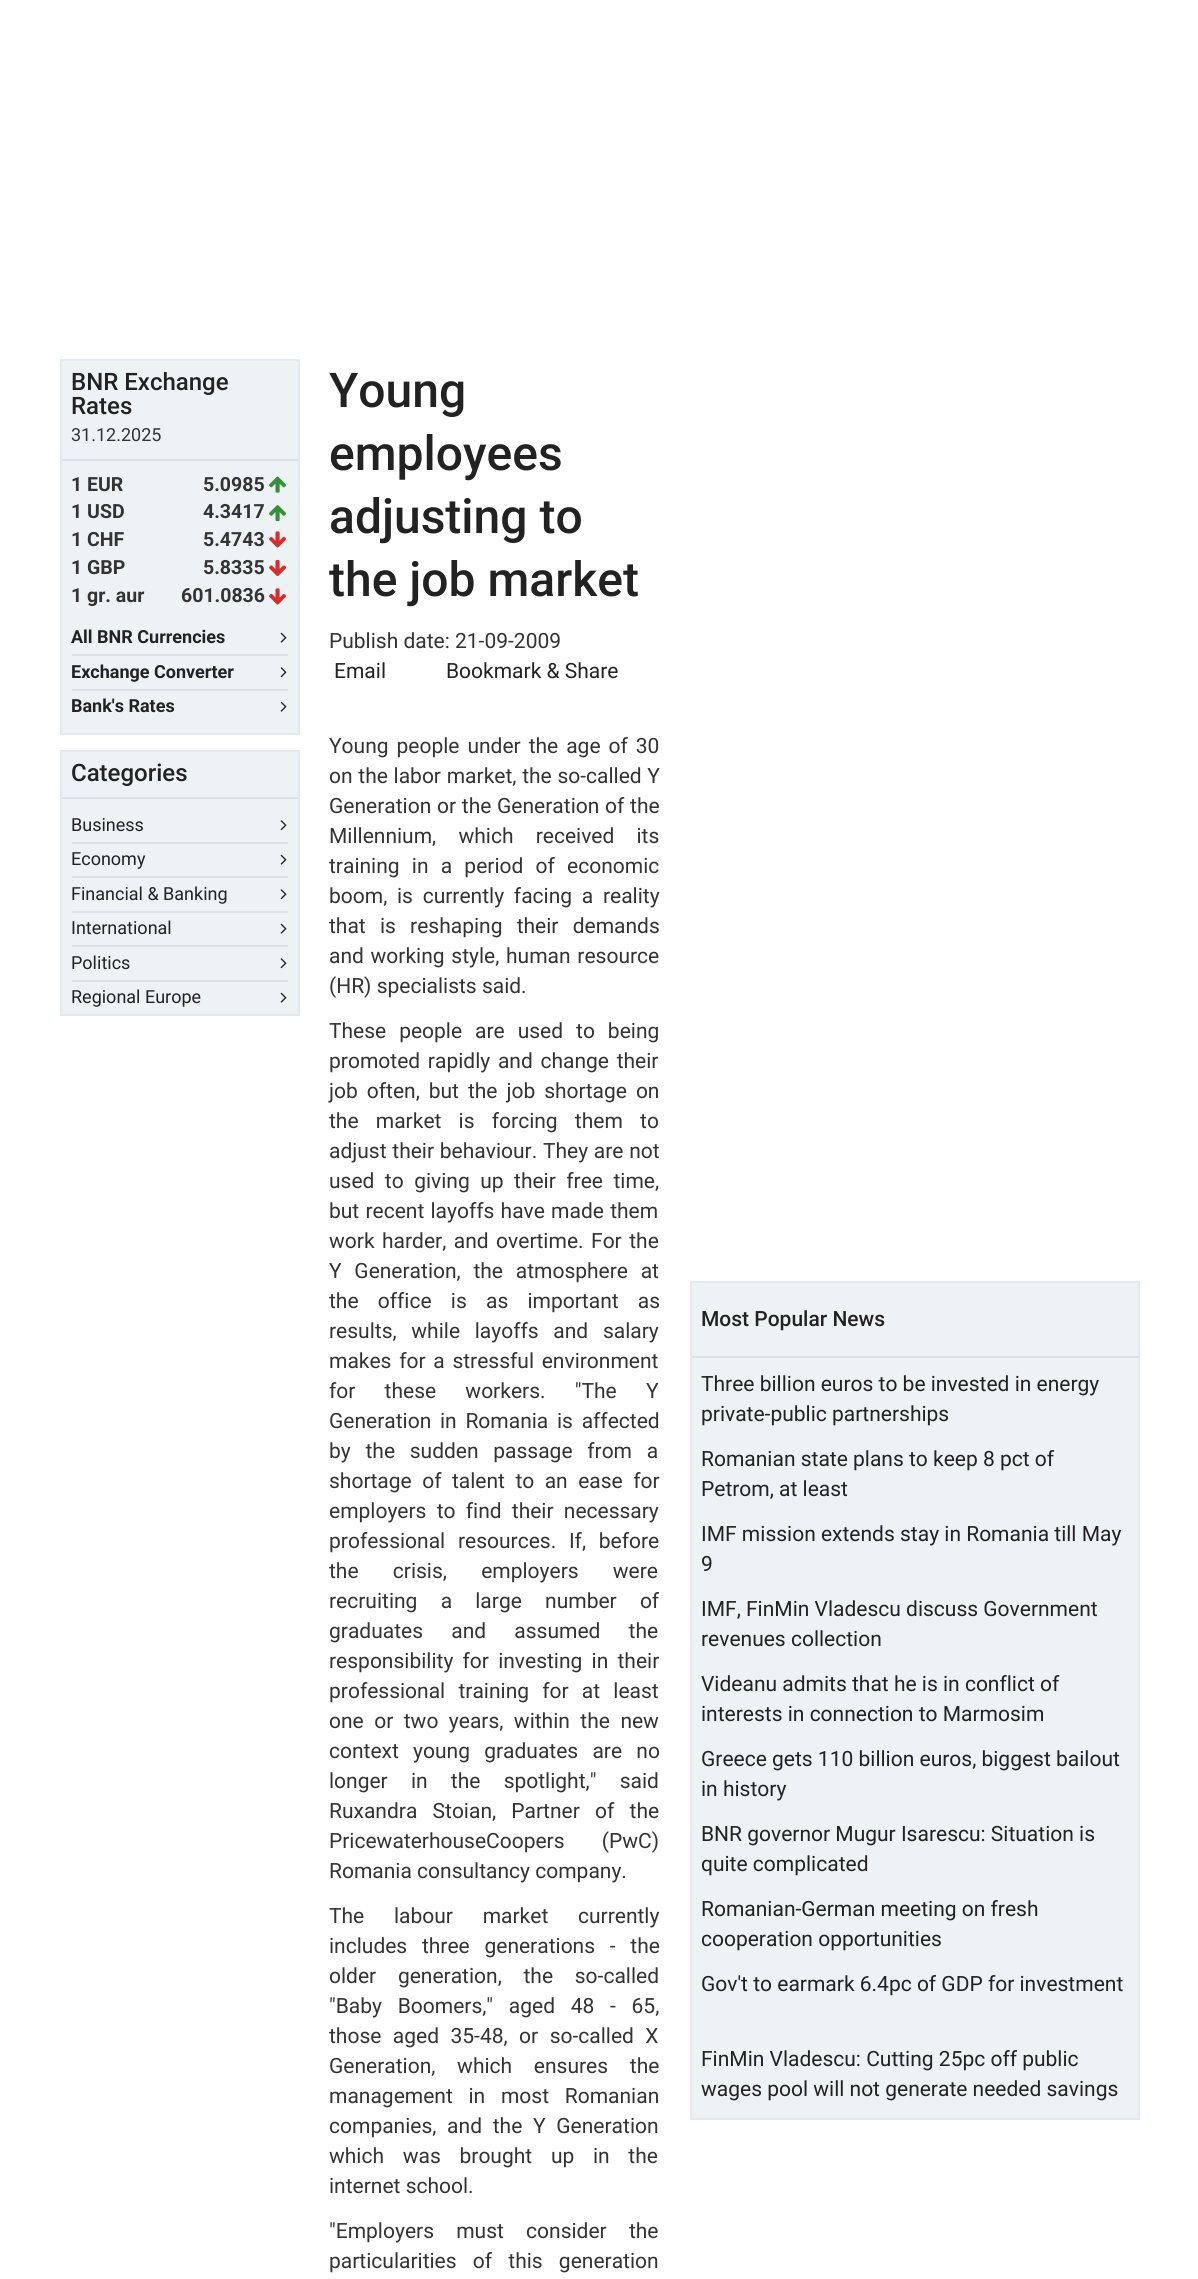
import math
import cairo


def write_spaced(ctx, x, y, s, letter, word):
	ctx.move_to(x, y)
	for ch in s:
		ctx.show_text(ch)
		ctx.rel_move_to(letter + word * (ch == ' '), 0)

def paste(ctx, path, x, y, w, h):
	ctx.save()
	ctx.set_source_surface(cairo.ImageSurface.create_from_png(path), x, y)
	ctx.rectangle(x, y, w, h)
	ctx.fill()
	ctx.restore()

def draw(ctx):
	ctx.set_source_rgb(1, 1, 1)
	ctx.paint()
	ctx.set_source_rgb(0.929, 0.949, 0.957)
	ctx.rectangle(61, 360, 238, 374)
	ctx.fill_preserve()
	ctx.set_source_rgb(0.898, 0.91, 0.945)
	ctx.stroke()
	ctx.set_source_rgb(0.859, 0.878, 0.902)
	ctx.rectangle(62, 459, 237, 2)
	ctx.fill()
	ctx.select_font_face('Roboto Medium')
	ctx.set_font_size(24)
	ctx.set_source_rgb(0.133, 0.133, 0.133)
	ctx.move_to(71, 390)
	ctx.show_text('BNR Exchange')
	ctx.move_to(71, 414)
	ctx.show_text('Rates')
	ctx.select_font_face('Roboto')
	ctx.set_font_size(18)
	ctx.set_source_rgb(0.2, 0.2, 0.2)
	ctx.move_to(71, 441)
	ctx.show_text('31.12.2025')
	ctx.select_font_face('Roboto', cairo.FONT_SLANT_NORMAL, cairo.FONT_WEIGHT_BOLD)
	ctx.set_font_size(19.5)
	ctx.move_to(71, 491)
	ctx.show_text('1 EUR')
	ctx.move_to(203, 491)
	ctx.show_text('5.0985')
	paste(ctx, 'media/1.png', 269, 476, 17, 17)
	ctx.move_to(71, 518)
	ctx.show_text('1 USD')
	ctx.move_to(203, 518)
	ctx.show_text('4.3417')
	paste(ctx, 'media/2.png', 269, 505, 17, 17)
	ctx.move_to(71, 546)
	ctx.show_text('1 CHF')
	ctx.move_to(203, 546)
	ctx.show_text('5.4743')
	paste(ctx, 'media/3.png', 269, 531, 17, 17)
	ctx.move_to(71, 574)
	ctx.show_text('1 GBP')
	ctx.move_to(203, 574)
	ctx.show_text('5.8335')
	paste(ctx, 'media/4.png', 269, 559, 17, 18)
	ctx.move_to(71, 602)
	ctx.show_text('1 gr. aur')
	ctx.move_to(181, 602)
	ctx.show_text('601.0836')
	paste(ctx, 'media/3.png', 269, 588, 17, 17)
	ctx.set_source_rgb(0.859, 0.878, 0.902)
	ctx.rectangle(72, 654, 216, 2)
	ctx.fill()
	ctx.set_font_size(18)
	ctx.set_source_rgb(0.133, 0.133, 0.133)
	ctx.move_to(71, 643)
	ctx.show_text('All BNR Currencies')
	paste(ctx, 'media/5.png', 280, 632, 7, 11)
	ctx.set_source_rgb(0.859, 0.878, 0.902)
	ctx.rectangle(72, 689, 216, 2)
	ctx.fill()
	ctx.set_source_rgb(0.133, 0.133, 0.133)
	ctx.move_to(71, 678)
	ctx.show_text('Exchange Converter')
	paste(ctx, 'media/6.png', 280, 667, 7, 11)
	ctx.move_to(71, 712)
	ctx.show_text('Bank\'s Rates')
	paste(ctx, 'media/5.png', 280, 701, 7, 11)
	ctx.set_source_rgb(0.929, 0.949, 0.957)
	ctx.rectangle(61, 751, 238, 264)
	ctx.fill_preserve()
	ctx.set_source_rgb(0.898, 0.91, 0.945)
	ctx.stroke()
	ctx.set_source_rgb(0.859, 0.878, 0.902)
	ctx.rectangle(62, 797, 237, 2)
	ctx.fill()
	ctx.select_font_face('Roboto Medium')
	ctx.set_font_size(24)
	ctx.set_source_rgb(0.133, 0.133, 0.133)
	ctx.move_to(71, 781)
	ctx.show_text('Categories')
	ctx.set_source_rgb(0.859, 0.878, 0.902)
	ctx.rectangle(72, 842, 216, 2)
	ctx.fill()
	ctx.select_font_face('Roboto')
	ctx.set_font_size(18)
	ctx.set_source_rgb(0.133, 0.133, 0.133)
	ctx.move_to(71, 831)
	ctx.show_text('Business')
	paste(ctx, 'media/6.png', 280, 820, 7, 11)
	ctx.set_source_rgb(0.859, 0.878, 0.902)
	ctx.rectangle(72, 876, 216, 2)
	ctx.fill()
	ctx.set_source_rgb(0.133, 0.133, 0.133)
	ctx.move_to(71, 865)
	ctx.show_text('Economy')
	paste(ctx, 'media/5.png', 280, 854, 7, 11)
	ctx.set_source_rgb(0.859, 0.878, 0.902)
	ctx.rectangle(72, 911, 216, 2)
	ctx.fill()
	ctx.set_source_rgb(0.133, 0.133, 0.133)
	ctx.move_to(71, 900)
	ctx.show_text('Financial & Banking')
	paste(ctx, 'media/6.png', 280, 889, 7, 11)
	ctx.set_source_rgb(0.859, 0.878, 0.902)
	ctx.rectangle(72, 945, 216, 2)
	ctx.fill()
	ctx.set_source_rgb(0.133, 0.133, 0.133)
	ctx.move_to(71, 934)
	ctx.show_text('International')
	paste(ctx, 'media/5.png', 280, 923, 7, 11)
	ctx.set_source_rgb(0.859, 0.878, 0.902)
	ctx.rectangle(72, 980, 216, 2)
	ctx.fill()
	ctx.set_source_rgb(0.133, 0.133, 0.133)
	ctx.move_to(71, 969)
	ctx.show_text('Politics')
	paste(ctx, 'media/6.png', 280, 958, 7, 11)
	ctx.move_to(71, 1003)
	ctx.show_text('Regional Europe')
	paste(ctx, 'media/5.png', 280, 992, 7, 11)
	ctx.select_font_face('Roboto Medium')
	ctx.set_font_size(48)
	for x, y, s in [
		(329, 407, 'Young'),
		(329, 470, 'employees'),
		(329, 533, 'adjusting to'),
		(329, 596, 'the job market'),
	]:
		ctx.move_to(x, y)
		ctx.show_text(s)
	ctx.select_font_face('Roboto')
	ctx.set_font_size(21)
	ctx.set_source_rgb(0.2, 0.2, 0.2)
	ctx.move_to(329, 648)
	ctx.show_text('Publish date: 21-09-2009')
	ctx.set_source_rgb(0.133, 0.133, 0.133)
	ctx.move_to(334, 678)
	ctx.show_text('Email')
	ctx.move_to(446, 678)
	ctx.show_text('Bookmark & Share')
	ctx.set_source_rgb(0.2, 0.2, 0.2)
	write_spaced(ctx, 329, 753, 'Young people under the age of 30', 0, 2.75)
	write_spaced(ctx, 329, 783, 'on the labor market, the so-called Y', 0, 0.5)
	write_spaced(ctx, 329, 813, 'Generation or the Generation of the', 0, 0.5)
	write_spaced(ctx, 329, 843, 'Millennium, which received its', 0, 17)
	write_spaced(ctx, 329, 873, 'training in a period of economic', 0, 7)
	write_spaced(ctx, 329, 903, 'boom, is currently facing a reality', 0, 4.5)
	write_spaced(ctx, 329, 933, 'that is reshaping their demands', 0, 9)
	write_spaced(ctx, 329, 963, 'and working style, human resource', 0, 1.5)
	ctx.move_to(329, 993)
	ctx.show_text('(HR) specialists said.')
	write_spaced(ctx, 329, 1038, 'These people are used to being', 0, 7.75)
	write_spaced(ctx, 329, 1068, 'promoted rapidly and change their', 0, 2.5)
	write_spaced(ctx, 329, 1098, 'job often, but the job shortage on', 0, 3.75)
	write_spaced(ctx, 329, 1128, 'the market is forcing them to', 0, 12)
	write_spaced(ctx, 329, 1158, 'adjust their behaviour. They are not', 0, 0.5)
	write_spaced(ctx, 329, 1188, 'used to giving up their free time,', 0, 5.25)
	write_spaced(ctx, 329, 1218, 'but recent layoffs have made them', 0, 1)
	write_spaced(ctx, 329, 1248, 'work harder, and overtime. For the', 0, 2.25)
	write_spaced(ctx, 329, 1278, 'Y Generation, the atmosphere at', 0, 7.5)
	write_spaced(ctx, 329, 1308, 'the office is as important as', 0, 14)
	write_spaced(ctx, 329, 1338, 'results, while layoffs and salary', 0, 9.5)
	write_spaced(ctx, 329, 1368, 'makes for a stressful environment', 0, 2.5)
	write_spaced(ctx, 329, 1398, 'for these workers. "The Y', 0, 24)
	write_spaced(ctx, 329, 1428, 'Generation in Romania is affected', 0, 3.5)
	write_spaced(ctx, 329, 1458, 'by the sudden passage from a', 0, 9.5)
	write_spaced(ctx, 329, 1488, 'shortage of talent to an ease for', 0, 5.25)
	write_spaced(ctx, 329, 1518, 'employers to find their necessary', 0, 5)
	write_spaced(ctx, 329, 1548, 'professional resources. If, before', 0, 7.5)
	write_spaced(ctx, 329, 1578, 'the crisis, employers were', 0, 29)
	write_spaced(ctx, 329, 1608, 'recruiting a large number of', 0, 18)
	write_spaced(ctx, 329, 1638, 'graduates and assumed the', 0, 23)
	write_spaced(ctx, 329, 1668, 'responsibility for investing in their', 0, 4)
	write_spaced(ctx, 329, 1698, 'professional training for at least', 0, 8)
	write_spaced(ctx, 329, 1728, 'one or two years, within the new', 0, 5.25)
	write_spaced(ctx, 329, 1758, 'context young graduates are no', 0, 9)
	write_spaced(ctx, 329, 1788, 'longer in the spotlight," said', 0, 18)
	write_spaced(ctx, 329, 1818, 'Ruxandra Stoian, Partner of the', 0, 10)
	write_spaced(ctx, 329, 1848, 'PricewaterhouseCoopers (PwC)', 0, 32)
	ctx.move_to(329, 1878)
	ctx.show_text('Romania consultancy company.')
	write_spaced(ctx, 329, 1923, 'The labour market currently', 0, 24.5)
	write_spaced(ctx, 329, 1953, 'includes three generations - the', 0, 9.5)
	write_spaced(ctx, 329, 1983, 'older generation, the so-called', 0, 16.5)
	write_spaced(ctx, 329, 2013, '"Baby Boomers," aged 48 - 65,', 0, 10.5)
	write_spaced(ctx, 329, 2043, 'those aged 35-48, or so-called X', 0, 6.25)
	write_spaced(ctx, 329, 2073, 'Generation, which ensures the', 0, 16.5)
	write_spaced(ctx, 329, 2103, 'management in most Romanian', 0, 10.5)
	write_spaced(ctx, 329, 2133, 'companies, and the Y Generation', 0, 5.5)
	write_spaced(ctx, 329, 2163, 'which was brought up in the', 0, 13.5)
	ctx.move_to(329, 2193)
	ctx.show_text('internet school.')
	write_spaced(ctx, 329, 2238, '"Employers must consider the', 0, 17)
	write_spaced(ctx, 329, 2268, 'particularities of this generation', 0, 11)
	ctx.set_source_rgb(0.929, 0.949, 0.957)
	ctx.rectangle(691, 1282, 448, 837)
	ctx.fill_preserve()
	ctx.set_source_rgb(0.898, 0.91, 0.945)
	ctx.stroke()
	ctx.set_source_rgb(0.859, 0.878, 0.902)
	ctx.rectangle(692, 1356, 447, 2)
	ctx.fill()
	ctx.select_font_face('Roboto Medium')
	ctx.set_source_rgb(0.133, 0.133, 0.133)
	ctx.move_to(701, 1326)
	ctx.show_text('Most Popular News')
	ctx.select_font_face('Roboto')
	for x, y, s in [
		(701, 1391, 'Three billion euros to be invested in energy'),
		(701, 1421, 'private-public partnerships'),
		(701, 1466, 'Romanian state plans to keep 8 pct of'),
		(701, 1496, 'Petrom, at least'),
		(701, 1541, 'IMF mission extends stay in Romania till May'),
		(701, 1571, '9'),
		(701, 1616, 'IMF, FinMin Vladescu discuss Government'),
		(701, 1646, 'revenues collection'),
		(701, 1691, 'Videanu admits that he is in conflict of'),
		(701, 1721, 'interests in connection to Marmosim'),
		(701, 1766, 'Greece gets 110 billion euros, biggest bailout'),
		(701, 1796, 'in history'),
		(701, 1841, 'BNR governor Mugur Isarescu: Situation is'),
		(701, 1871, 'quite complicated'),
		(701, 1916, 'Romanian-German meeting on fresh'),
		(701, 1946, 'cooperation opportunities'),
		(701, 1991, 'Gov\'t to earmark 6.4pc of GDP for investment'),
		(701, 2066, 'FinMin Vladescu: Cutting 25pc off public'),
		(701, 2096, 'wages pool will not generate needed savings'),
	]:
		ctx.move_to(x, y)
		ctx.show_text(s)


surface = cairo.ImageSurface(cairo.FORMAT_RGB24, 1198, 2279)
ctx = cairo.Context(surface)
options = cairo.FontOptions()
options.set_hint_metrics(cairo.HINT_METRICS_OFF)
options.set_hint_style(cairo.HINT_STYLE_NONE)
ctx.set_font_options(options)
ctx.set_miter_limit(4)
draw(ctx)
surface.write_to_png('image.png')
